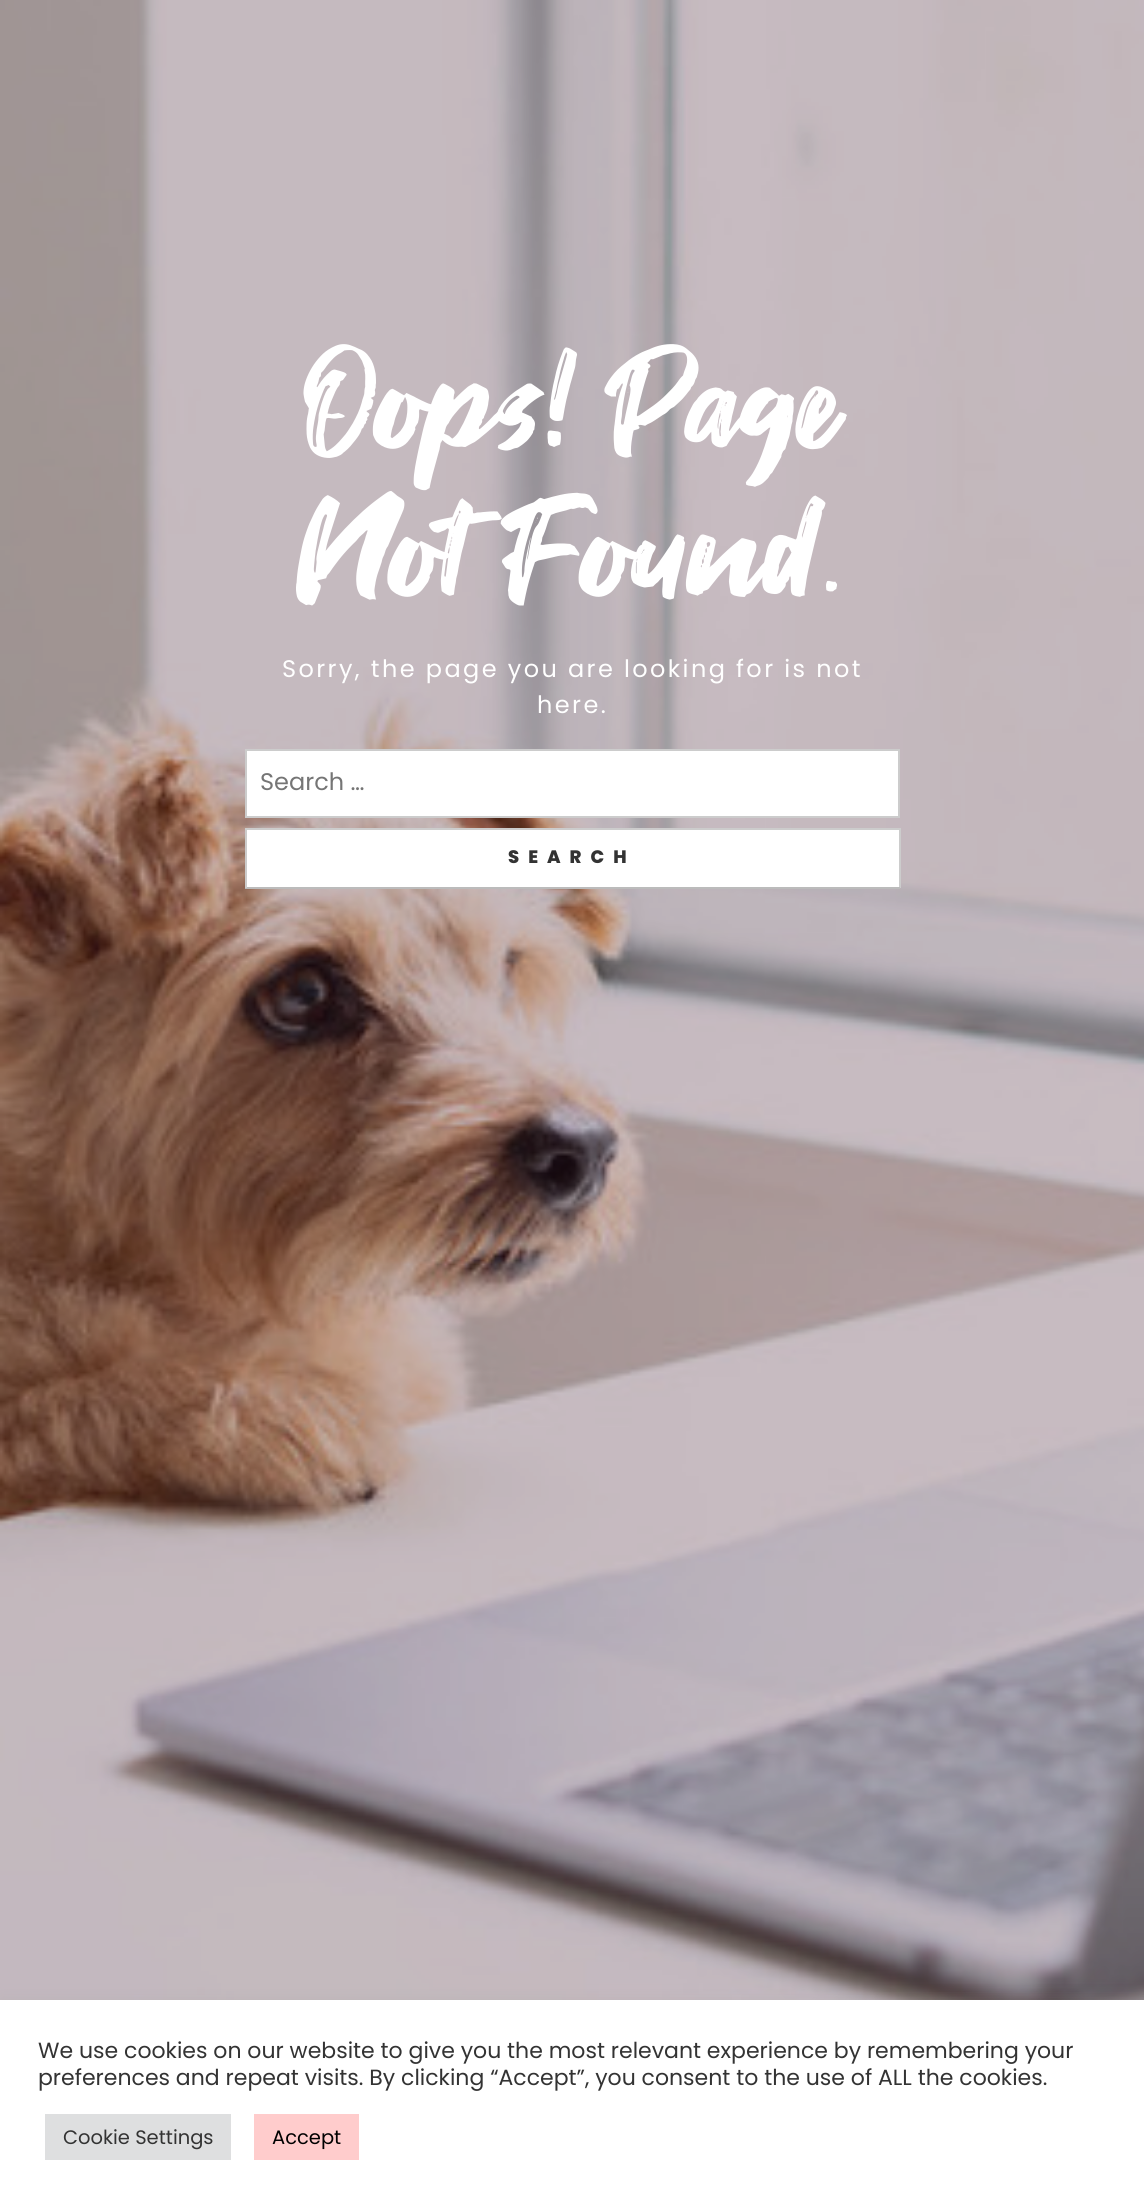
import math
import cairo


def write_spaced(ctx, x, y, s, letter, word):
	ctx.move_to(x, y)
	for ch in s:
		ctx.show_text(ch)
		ctx.rel_move_to(letter + word * (ch == ' '), 0)

def round_path(ctx, x, y, w, h, r):
	ctx.new_sub_path()
	for i, (u, v) in enumerate([(x + w - r, y + h - r), (x + r, y + h - r), (x + r, y + r), (x + w - r, y + r)]):
		ctx.arc(u, v, r, i * math.pi / 2, (i + 1) * math.pi / 2)
	ctx.close_path()

def blur_box(ctx, x, y, w, h, r, blur, alpha):
	ctx.push_group_with_content(cairo.CONTENT_ALPHA)
	ctx.set_operator(cairo.OPERATOR_SOURCE)
	for i in range(15, -16, -2):
		e = blur * i / 6
		if min(w, h) + 2 * e > 0:
			ctx.set_source_rgba(0, 0, 0, alpha * math.erfc((i - 1) / 8.5) / 2)
			round_path(ctx, x - e, y - e, w + 2 * e, h + 2 * e, max(0, min(r + e + blur * .6, min(w, h) / 2 + e)))
			ctx.fill()
	ctx.mask(ctx.pop_group())

def paste(ctx, path, x, y, w, h):
	ctx.save()
	ctx.set_source_surface(cairo.ImageSurface.create_from_png(path), x, y)
	ctx.rectangle(x, y, w, h)
	ctx.fill()
	ctx.restore()

def draw(ctx):
	ctx.set_source_rgb(1, 1, 1)
	ctx.paint()
	paste(ctx, 'media/1.png', 0, 0, 1144, 2000)
	ctx.select_font_face('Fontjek')
	ctx.set_font_size(135)
	ctx.set_source_rgb(1, 1, 1)
	write_spaced(ctx, 305, 454, 'Oops! Page', 1.4, 0)
	write_spaced(ctx, 297, 602, 'Not Found.', 1.4, 0)
	ctx.select_font_face('Poppins')
	ctx.set_font_size(24)
	write_spaced(ctx, 282, 677, 'Sorry, the page you are looking for is not', 2.4, 0)
	write_spaced(ctx, 537, 713, 'here.', 2.4, 0)
	ctx.rectangle(246, 750, 653, 67)
	ctx.fill_preserve()
	ctx.set_source_rgb(0.8, 0.8, 0.8)
	ctx.stroke()
	ctx.set_source_rgb(0.459, 0.459, 0.459)
	ctx.move_to(260, 790)
	ctx.show_text('Search …')
	ctx.set_source_rgb(1, 1, 1)
	ctx.rectangle(247, 830, 652, 57)
	ctx.fill()
	ctx.set_source_rgb(0.8, 0.8, 0.8)
	ctx.rectangle(245, 828, 655, 2)
	ctx.rectangle(899, 828, 2, 60)
	ctx.fill()
	ctx.set_source_rgb(0.733, 0.733, 0.733)
	ctx.rectangle(245, 887, 655, 2)
	ctx.fill()
	ctx.set_source_rgb(0.8, 0.8, 0.8)
	ctx.rectangle(245, 828, 2, 60)
	ctx.fill()
	ctx.select_font_face('Poppins ExtraBold')
	ctx.set_font_size(18)
	ctx.set_source_rgb(0.2, 0.2, 0.2)
	write_spaced(ctx, 508, 863, 'SEARCH', 9, 0)
	ctx.set_source_rgb(0.675, 0.671, 0.671)
	blur_box(ctx, 0, 1998, 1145, 206, 0, 7.5, 0.3)
	ctx.set_source_rgb(1, 1, 1)
	ctx.rectangle(0, 2000, 1144, 205)
	ctx.fill()
	ctx.select_font_face('Poppins')
	ctx.set_font_size(22)
	ctx.set_source_rgb(0.2, 0.2, 0.2)
	ctx.move_to(38, 2058)
	ctx.show_text('We use cookies on our website to give you the most relevant experience by remembering your')
	ctx.move_to(38, 2085)
	ctx.show_text('preferences and repeat visits. By clicking “Accept”, you consent to the use of ALL the cookies.')
	ctx.set_source_rgb(0.871, 0.875, 0.878)
	ctx.rectangle(45, 2114, 186, 46)
	ctx.fill()
	ctx.set_font_size(19.5)
	ctx.set_source_rgb(0.2, 0.2, 0.2)
	ctx.move_to(63, 2144)
	ctx.show_text('Cookie Settings')
	ctx.set_source_rgb(1, 0.8, 0.8)
	ctx.rectangle(254, 2114, 105, 46)
	ctx.fill()
	ctx.set_source_rgb(0, 0, 0)
	ctx.move_to(272, 2144)
	ctx.show_text('Accept')


surface = cairo.ImageSurface(cairo.FORMAT_RGB24, 1144, 2205)
ctx = cairo.Context(surface)
options = cairo.FontOptions()
options.set_hint_metrics(cairo.HINT_METRICS_OFF)
options.set_hint_style(cairo.HINT_STYLE_NONE)
ctx.set_font_options(options)
ctx.set_miter_limit(4)
draw(ctx)
surface.write_to_png('image.png')
